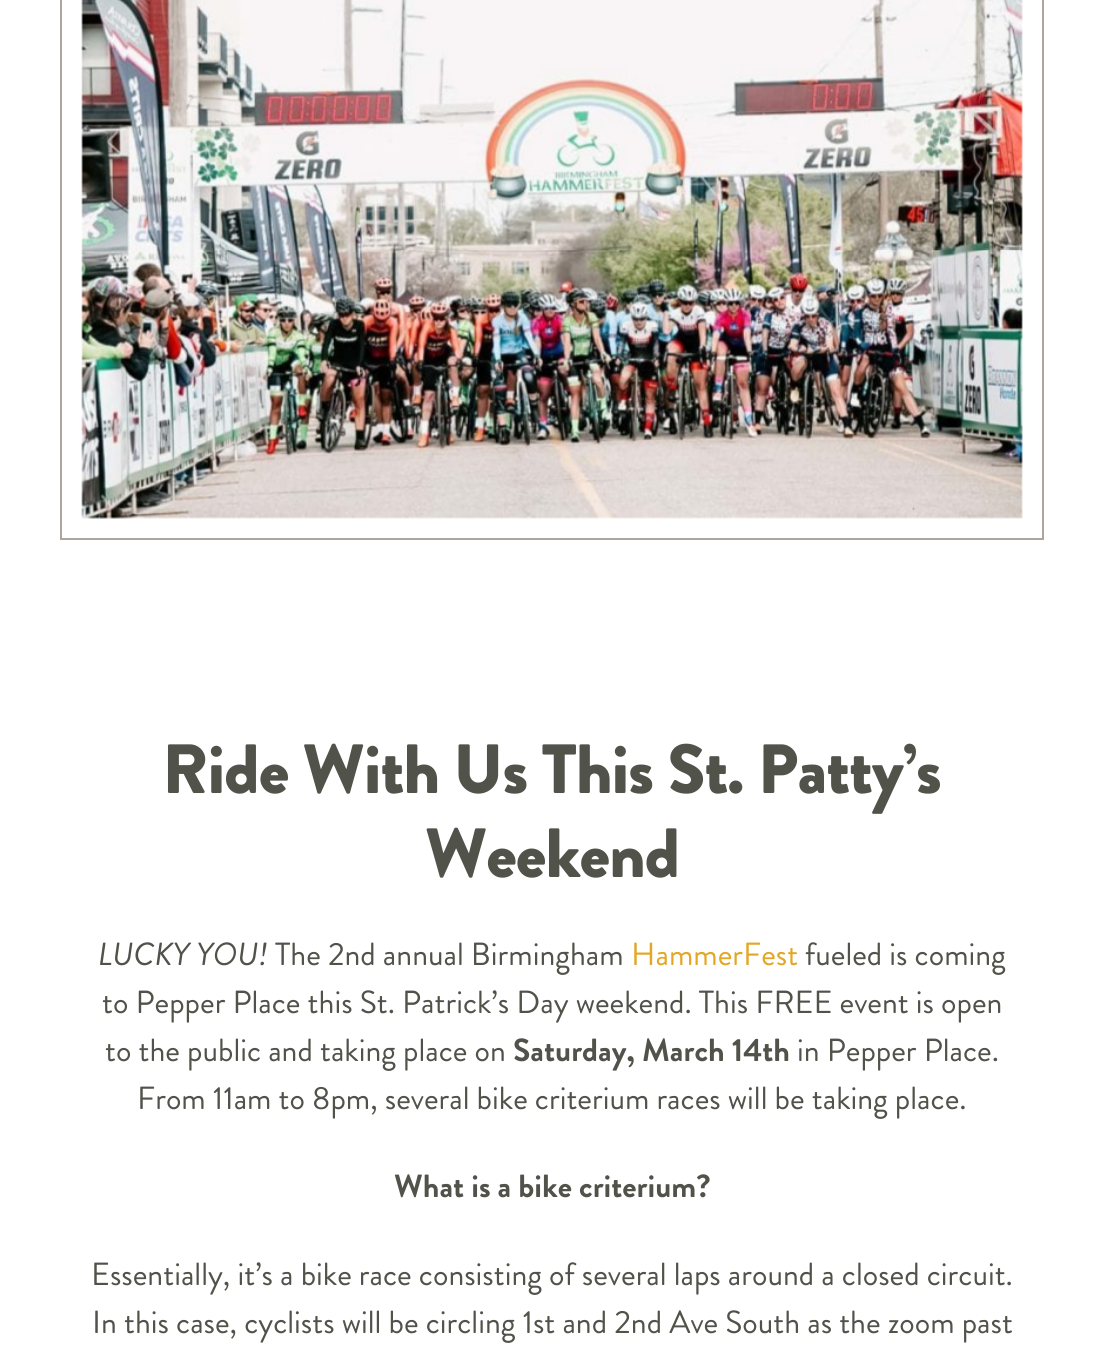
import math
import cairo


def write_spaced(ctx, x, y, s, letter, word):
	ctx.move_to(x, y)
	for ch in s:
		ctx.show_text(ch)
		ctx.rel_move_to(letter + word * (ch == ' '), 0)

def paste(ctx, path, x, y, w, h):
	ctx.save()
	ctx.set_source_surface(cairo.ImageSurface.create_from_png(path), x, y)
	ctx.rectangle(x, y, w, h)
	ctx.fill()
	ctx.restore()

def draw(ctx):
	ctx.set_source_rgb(1, 1, 1)
	ctx.paint()
	ctx.rectangle(61, -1, 982, 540)
	ctx.set_source_rgb(0.686, 0.647, 0.627)
	ctx.stroke()
	paste(ctx, 'media/1.png', 81, 0, 942, 519)
	ctx.select_font_face('Brandon Grotesque Black')
	ctx.set_font_size(69.5)
	ctx.set_source_rgb(0.318, 0.325, 0.29)
	write_spaced(ctx, 162, 793, 'Ride With Us This St. Patty’s', -1.05, 0)
	write_spaced(ctx, 425, 877, 'Weekend', -1.05, 0)
	ctx.select_font_face('Brandon Grotesque', cairo.FONT_SLANT_ITALIC)
	ctx.set_font_size(32)
	ctx.move_to(98, 965)
	ctx.show_text('LUCKY YOU!')
	ctx.select_font_face('Brandon Grotesque')
	ctx.move_to(275, 965)
	ctx.show_text('The 2nd annual Birmingham')
	ctx.set_source_rgb(0.89, 0.655, 0.145)
	ctx.move_to(631, 965)
	ctx.show_text('HammerFest')
	ctx.set_source_rgb(0.318, 0.325, 0.29)
	for x, y, s in [
		(805, 965, 'fueled is coming'),
		(102, 1013, 'to Pepper Place this St. Patrick’s Day weekend. This FREE event is open'),
		(105, 1061, 'to the public and taking place on'),
	]:
		ctx.move_to(x, y)
		ctx.show_text(s)
	ctx.select_font_face('Brandon Grotesque', cairo.FONT_SLANT_NORMAL, cairo.FONT_WEIGHT_BOLD)
	ctx.move_to(513, 1061)
	ctx.show_text('Saturday, March 14th')
	ctx.select_font_face('Brandon Grotesque')
	ctx.move_to(797, 1061)
	ctx.show_text('in Pepper Place.')
	ctx.move_to(137, 1109)
	ctx.show_text('From 11am to 8pm, several bike criterium races will be taking place.')
	ctx.select_font_face('Brandon Grotesque', cairo.FONT_SLANT_NORMAL, cairo.FONT_WEIGHT_BOLD)
	ctx.move_to(394, 1197)
	ctx.show_text('What is a bike criterium?')
	ctx.select_font_face('Brandon Grotesque')
	ctx.move_to(91, 1285)
	ctx.show_text('Essentially, it’s a bike race consisting of several laps around a closed circuit.')
	ctx.move_to(92, 1333)
	ctx.show_text('In this case, cyclists will be circling 1st and 2nd Ave South as the zoom past')


surface = cairo.ImageSurface(cairo.FORMAT_RGB24, 1104, 1372)
ctx = cairo.Context(surface)
options = cairo.FontOptions()
options.set_hint_metrics(cairo.HINT_METRICS_OFF)
options.set_hint_style(cairo.HINT_STYLE_NONE)
ctx.set_font_options(options)
ctx.set_miter_limit(4)
draw(ctx)
surface.write_to_png('image.png')
